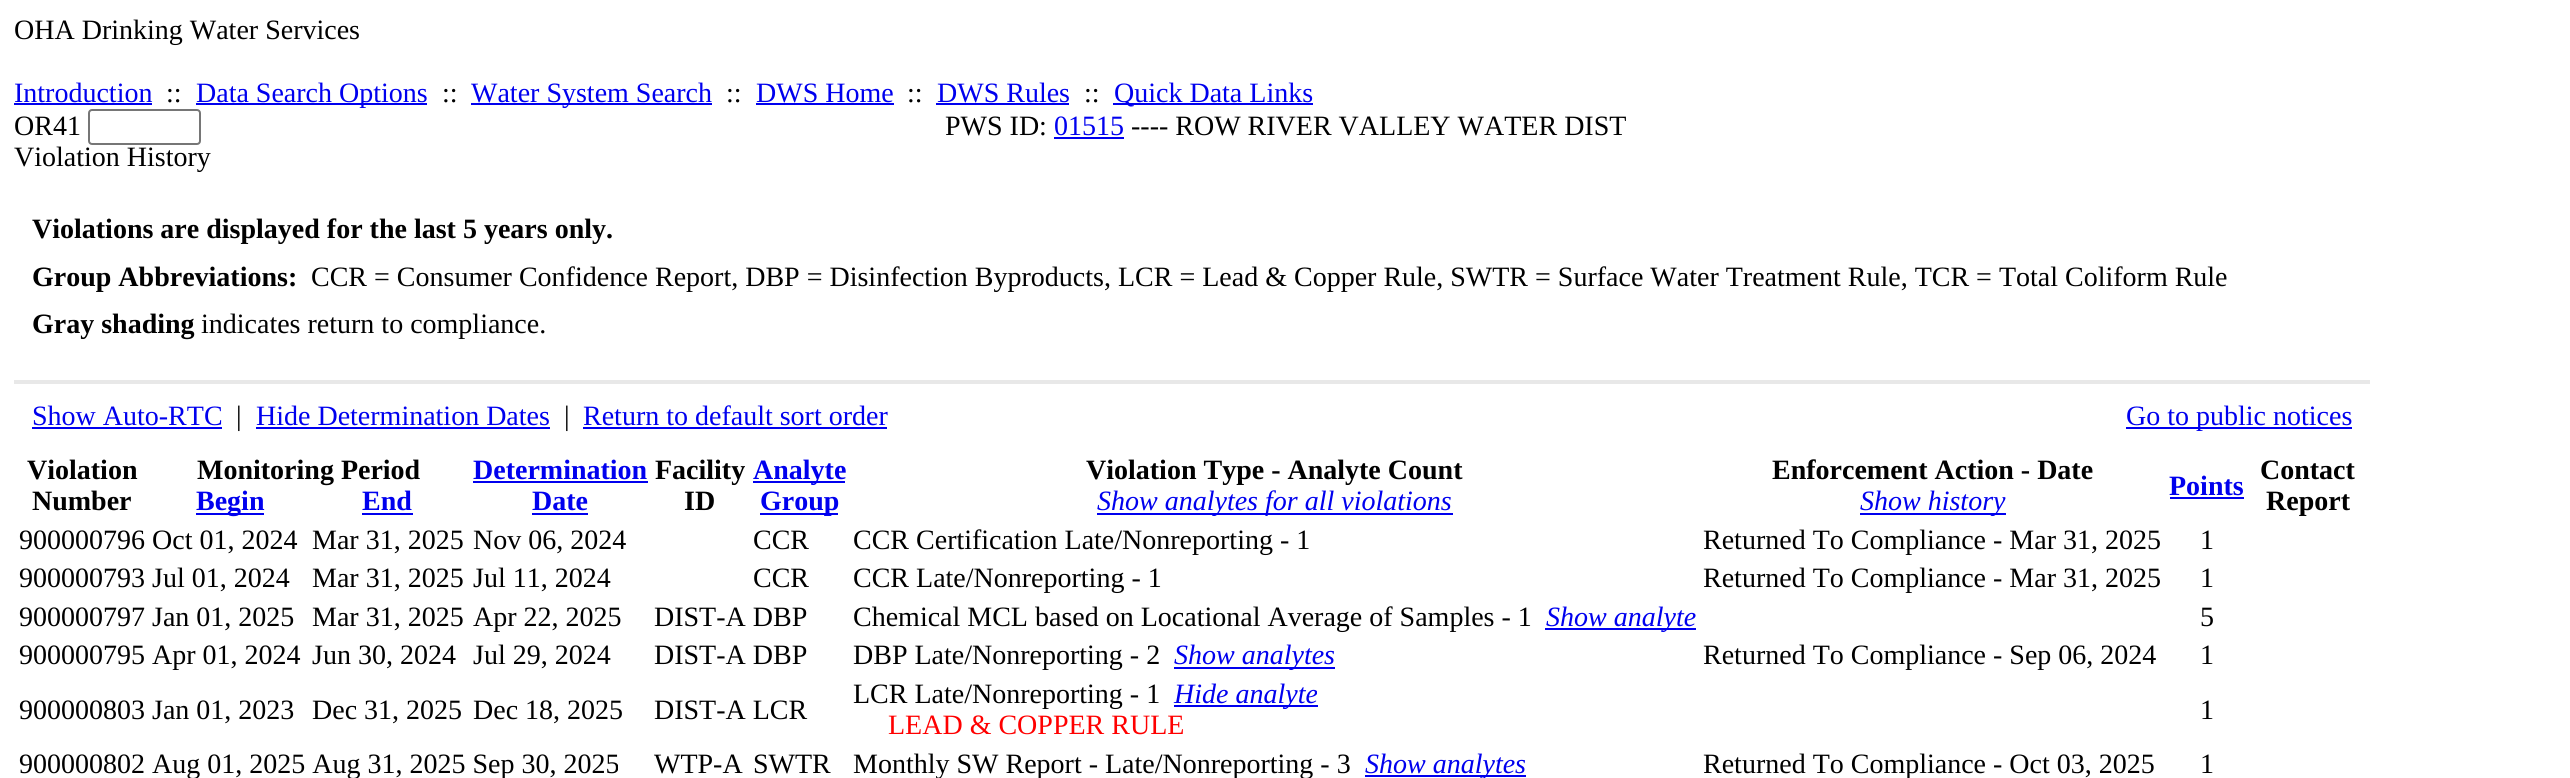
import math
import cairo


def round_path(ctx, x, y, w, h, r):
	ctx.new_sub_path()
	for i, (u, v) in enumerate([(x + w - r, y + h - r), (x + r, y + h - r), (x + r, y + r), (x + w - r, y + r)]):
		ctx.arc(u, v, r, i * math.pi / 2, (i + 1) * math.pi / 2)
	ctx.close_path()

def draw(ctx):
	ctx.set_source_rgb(1, 1, 1)
	ctx.paint()
	ctx.select_font_face('Liberation Serif')
	ctx.set_font_size(28)
	ctx.set_source_rgb(0, 0, 0)
	ctx.move_to(14, 39)
	ctx.show_text('OHA Drinking Water Services')
	ctx.set_source_rgb(0, 0, 0.933)
	ctx.move_to(14, 102)
	ctx.show_text('Introduction')
	ctx.rectangle(14, 103, 138, 2)
	ctx.fill()
	ctx.set_source_rgb(0, 0, 0)
	ctx.move_to(166, 102)
	ctx.show_text('::')
	ctx.set_source_rgb(0, 0, 0.933)
	ctx.rectangle(196, 103, 231, 2)
	ctx.fill()
	ctx.move_to(196, 102)
	ctx.show_text('Data Search Options')
	ctx.set_source_rgb(0, 0, 0)
	ctx.move_to(442, 102)
	ctx.show_text('::')
	ctx.set_source_rgb(0, 0, 0.933)
	ctx.rectangle(471, 103, 241, 2)
	ctx.fill()
	ctx.move_to(471, 102)
	ctx.show_text('Water System Search')
	ctx.set_source_rgb(0, 0, 0)
	ctx.move_to(726, 102)
	ctx.show_text('::')
	ctx.set_source_rgb(0, 0, 0.933)
	ctx.move_to(756, 102)
	ctx.show_text('DWS Home')
	ctx.rectangle(756, 103, 138, 2)
	ctx.fill()
	ctx.set_source_rgb(0, 0, 0)
	ctx.move_to(907, 102)
	ctx.show_text('::')
	ctx.set_source_rgb(0, 0, 0.933)
	ctx.move_to(937, 102)
	ctx.show_text('DWS Rules')
	ctx.rectangle(936, 103, 133, 2)
	ctx.fill()
	ctx.set_source_rgb(0, 0, 0)
	ctx.move_to(1084, 102)
	ctx.show_text('::')
	ctx.set_source_rgb(0, 0, 0.933)
	ctx.rectangle(1113, 103, 200, 2)
	ctx.fill()
	ctx.move_to(1114, 102)
	ctx.show_text('Quick Data Links')
	ctx.set_source_rgb(0, 0, 0)
	ctx.move_to(14, 135)
	ctx.show_text('OR41')
	round_path(ctx, 89, 110, 111, 34, 3)
	ctx.set_source_rgb(0.463, 0.463, 0.463)
	ctx.stroke()
	ctx.set_source_rgb(0, 0, 0)
	ctx.move_to(945, 135)
	ctx.show_text('PWS ID:')
	ctx.set_source_rgb(0, 0, 0.933)
	ctx.move_to(1054, 135)
	ctx.show_text('01515')
	ctx.rectangle(1054, 137, 70, 2)
	ctx.fill()
	ctx.set_source_rgb(0, 0, 0)
	ctx.move_to(1131, 135)
	ctx.show_text('---- ROW RIVER VALLEY WATER DIST')
	ctx.move_to(14, 166)
	ctx.show_text('Violation History')
	ctx.select_font_face('Liberation Serif', cairo.FONT_SLANT_NORMAL, cairo.FONT_WEIGHT_BOLD)
	ctx.move_to(32, 238)
	ctx.show_text('Violations are displayed for the last 5 years only.')
	ctx.move_to(32, 286)
	ctx.show_text('Group Abbreviations:')
	ctx.select_font_face('Liberation Serif')
	ctx.move_to(311, 286)
	ctx.show_text('CCR = Consumer Confidence Report, DBP = Disinfection Byproducts, LCR = Lead & Copper Rule, SWTR = Surface Water Treatment Rule, TCR = Total Coliform Rule')
	ctx.select_font_face('Liberation Serif', cairo.FONT_SLANT_NORMAL, cairo.FONT_WEIGHT_BOLD)
	ctx.move_to(32, 333)
	ctx.show_text('Gray shading')
	ctx.select_font_face('Liberation Serif')
	ctx.move_to(201, 333)
	ctx.show_text('indicates return to compliance.')
	ctx.set_source_rgb(0.91, 0.91, 0.91)
	ctx.rectangle(14, 380, 2356, 4)
	ctx.fill()
	ctx.set_source_rgb(0, 0, 0.933)
	ctx.move_to(32, 425)
	ctx.show_text('Show Auto-RTC')
	ctx.rectangle(32, 427, 190, 2)
	ctx.fill()
	ctx.set_source_rgb(0, 0, 0)
	ctx.move_to(236, 425)
	ctx.show_text('|')
	ctx.set_source_rgb(0, 0, 0.933)
	ctx.move_to(256, 425)
	ctx.show_text('Hide Determination Dates')
	ctx.rectangle(256, 427, 294, 2)
	ctx.fill()
	ctx.set_source_rgb(0, 0, 0)
	ctx.move_to(564, 425)
	ctx.show_text('|')
	ctx.set_source_rgb(0, 0, 0.933)
	ctx.move_to(583, 425)
	ctx.show_text('Return to default sort order')
	ctx.rectangle(583, 427, 304, 2)
	ctx.fill()
	ctx.rectangle(2126, 427, 226, 2)
	ctx.fill()
	ctx.move_to(2126, 425)
	ctx.show_text('Go to public notices')
	ctx.select_font_face('Liberation Serif', cairo.FONT_SLANT_NORMAL, cairo.FONT_WEIGHT_BOLD)
	ctx.set_source_rgb(0, 0, 0)
	for x, y, s in [
		(27, 479, 'Violation'),
		(32, 510, 'Number'),
		(197, 479, 'Monitoring Period'),
	]:
		ctx.move_to(x, y)
		ctx.show_text(s)
	ctx.set_source_rgb(0, 0, 0.933)
	ctx.rectangle(196, 513, 68, 2)
	ctx.fill()
	ctx.move_to(196, 510)
	ctx.show_text('Begin')
	ctx.move_to(362, 510)
	ctx.show_text('End')
	ctx.rectangle(362, 513, 51, 2)
	ctx.fill()
	ctx.move_to(473, 479)
	ctx.show_text('Determination')
	ctx.rectangle(473, 481, 175, 2)
	ctx.fill()
	ctx.move_to(532, 510)
	ctx.show_text('Date')
	ctx.rectangle(532, 513, 56, 2)
	ctx.fill()
	ctx.set_source_rgb(0, 0, 0)
	ctx.move_to(655, 479)
	ctx.show_text('Facility')
	ctx.move_to(684, 510)
	ctx.show_text('ID')
	ctx.set_source_rgb(0, 0, 0.933)
	ctx.rectangle(753, 481, 92, 2)
	ctx.fill()
	ctx.move_to(753, 479)
	ctx.show_text('Analyte')
	ctx.rectangle(760, 513, 78, 2)
	ctx.fill()
	ctx.move_to(760, 510)
	ctx.show_text('Group')
	ctx.set_source_rgb(0, 0, 0)
	ctx.move_to(1086, 479)
	ctx.show_text('Violation Type - Analyte Count')
	ctx.set_source_rgb(0, 0, 0.933)
	ctx.rectangle(1097, 513, 356, 2)
	ctx.fill()
	ctx.select_font_face('Liberation Serif', cairo.FONT_SLANT_ITALIC)
	ctx.move_to(1097, 510)
	ctx.show_text('Show analytes for all violations')
	ctx.select_font_face('Liberation Serif', cairo.FONT_SLANT_NORMAL, cairo.FONT_WEIGHT_BOLD)
	ctx.set_source_rgb(0, 0, 0)
	ctx.move_to(1772, 479)
	ctx.show_text('Enforcement Action - Date')
	ctx.set_source_rgb(0, 0, 0.933)
	ctx.rectangle(1860, 513, 146, 2)
	ctx.fill()
	ctx.select_font_face('Liberation Serif', cairo.FONT_SLANT_ITALIC)
	ctx.move_to(1860, 510)
	ctx.show_text('Show history')
	ctx.select_font_face('Liberation Serif', cairo.FONT_SLANT_NORMAL, cairo.FONT_WEIGHT_BOLD)
	ctx.move_to(2169, 495)
	ctx.show_text('Points')
	ctx.rectangle(2170, 497, 74, 2)
	ctx.fill()
	ctx.set_source_rgb(0, 0, 0)
	ctx.move_to(2260, 479)
	ctx.show_text('Contact')
	ctx.move_to(2266, 510)
	ctx.show_text('Report')
	ctx.select_font_face('Liberation Serif')
	for x, y, s in [
		(19, 549, '900000796 Oct 01, 2024'),
		(312, 549, 'Mar 31, 2025'),
		(473, 549, 'Nov 06, 2024'),
		(753, 549, 'CCR'),
		(853, 549, 'CCR Certification Late/Nonreporting - 1'),
		(1703, 549, 'Returned To Compliance - Mar 31, 2025'),
		(2200, 549, '1'),
		(19, 587, '900000793 Jul 01, 2024'),
		(312, 587, 'Mar 31, 2025'),
		(473, 587, 'Jul 11, 2024'),
		(753, 587, 'CCR'),
		(853, 587, 'CCR Late/Nonreporting - 1'),
		(1703, 587, 'Returned To Compliance - Mar 31, 2025'),
		(2200, 587, '1'),
		(19, 626, '900000797 Jan 01, 2025'),
		(312, 626, 'Mar 31, 2025'),
		(473, 626, 'Apr 22, 2025'),
		(654, 626, 'DIST-A DBP'),
		(853, 626, 'Chemical MCL based on Locational Average of Samples - 1'),
	]:
		ctx.move_to(x, y)
		ctx.show_text(s)
	ctx.set_source_rgb(0, 0, 0.933)
	ctx.rectangle(1545, 628, 151, 2)
	ctx.fill()
	ctx.select_font_face('Liberation Serif', cairo.FONT_SLANT_ITALIC)
	ctx.move_to(1546, 626)
	ctx.show_text('Show analyte')
	ctx.select_font_face('Liberation Serif')
	ctx.set_source_rgb(0, 0, 0)
	for x, y, s in [
		(2200, 626, '5'),
		(19, 664, '900000795 Apr 01, 2024'),
		(312, 664, 'Jun 30, 2024'),
		(473, 664, 'Jul 29, 2024'),
		(654, 664, 'DIST-A DBP'),
		(853, 664, 'DBP Late/Nonreporting - 2'),
	]:
		ctx.move_to(x, y)
		ctx.show_text(s)
	ctx.set_source_rgb(0, 0, 0.933)
	ctx.rectangle(1174, 667, 161, 2)
	ctx.fill()
	ctx.select_font_face('Liberation Serif', cairo.FONT_SLANT_ITALIC)
	ctx.move_to(1174, 664)
	ctx.show_text('Show analytes')
	ctx.select_font_face('Liberation Serif')
	ctx.set_source_rgb(0, 0, 0)
	for x, y, s in [
		(1703, 664, 'Returned To Compliance - Sep 06, 2024'),
		(2200, 664, '1'),
		(19, 719, '900000803 Jan 01, 2023'),
		(312, 719, 'Dec 31, 2025'),
		(473, 719, 'Dec 18, 2025'),
		(654, 719, 'DIST-A LCR'),
		(853, 703, 'LCR Late/Nonreporting - 1'),
	]:
		ctx.move_to(x, y)
		ctx.show_text(s)
	ctx.set_source_rgb(0, 0, 0.933)
	ctx.rectangle(1174, 705, 144, 2)
	ctx.fill()
	ctx.select_font_face('Liberation Serif', cairo.FONT_SLANT_ITALIC)
	ctx.move_to(1174, 703)
	ctx.show_text('Hide analyte')
	ctx.select_font_face('Liberation Serif')
	ctx.set_source_rgb(1, 0, 0)
	ctx.move_to(888, 734)
	ctx.show_text('LEAD & COPPER RULE')
	ctx.set_source_rgb(0, 0, 0)
	for x, y, s in [
		(2200, 719, '1'),
		(19, 773, '900000802 Aug 01, 2025 Aug 31, 2025 Sep 30, 2025'),
		(654, 773, 'WTP-A'),
		(753, 773, 'SWTR'),
		(853, 773, 'Monthly SW Report - Late/Nonreporting - 3'),
	]:
		ctx.move_to(x, y)
		ctx.show_text(s)
	ctx.set_source_rgb(0, 0, 0.933)
	ctx.rectangle(1365, 775, 161, 2)
	ctx.fill()
	ctx.select_font_face('Liberation Serif', cairo.FONT_SLANT_ITALIC)
	ctx.move_to(1365, 773)
	ctx.show_text('Show analytes')
	ctx.select_font_face('Liberation Serif')
	ctx.set_source_rgb(0, 0, 0)
	ctx.move_to(1703, 773)
	ctx.show_text('Returned To Compliance - Oct 03, 2025')
	ctx.move_to(2200, 773)
	ctx.show_text('1')


surface = cairo.ImageSurface(cairo.FORMAT_RGB24, 2570, 778)
ctx = cairo.Context(surface)
options = cairo.FontOptions()
options.set_hint_metrics(cairo.HINT_METRICS_OFF)
options.set_hint_style(cairo.HINT_STYLE_NONE)
ctx.set_font_options(options)
ctx.set_miter_limit(4)
draw(ctx)
surface.write_to_png('image.png')
